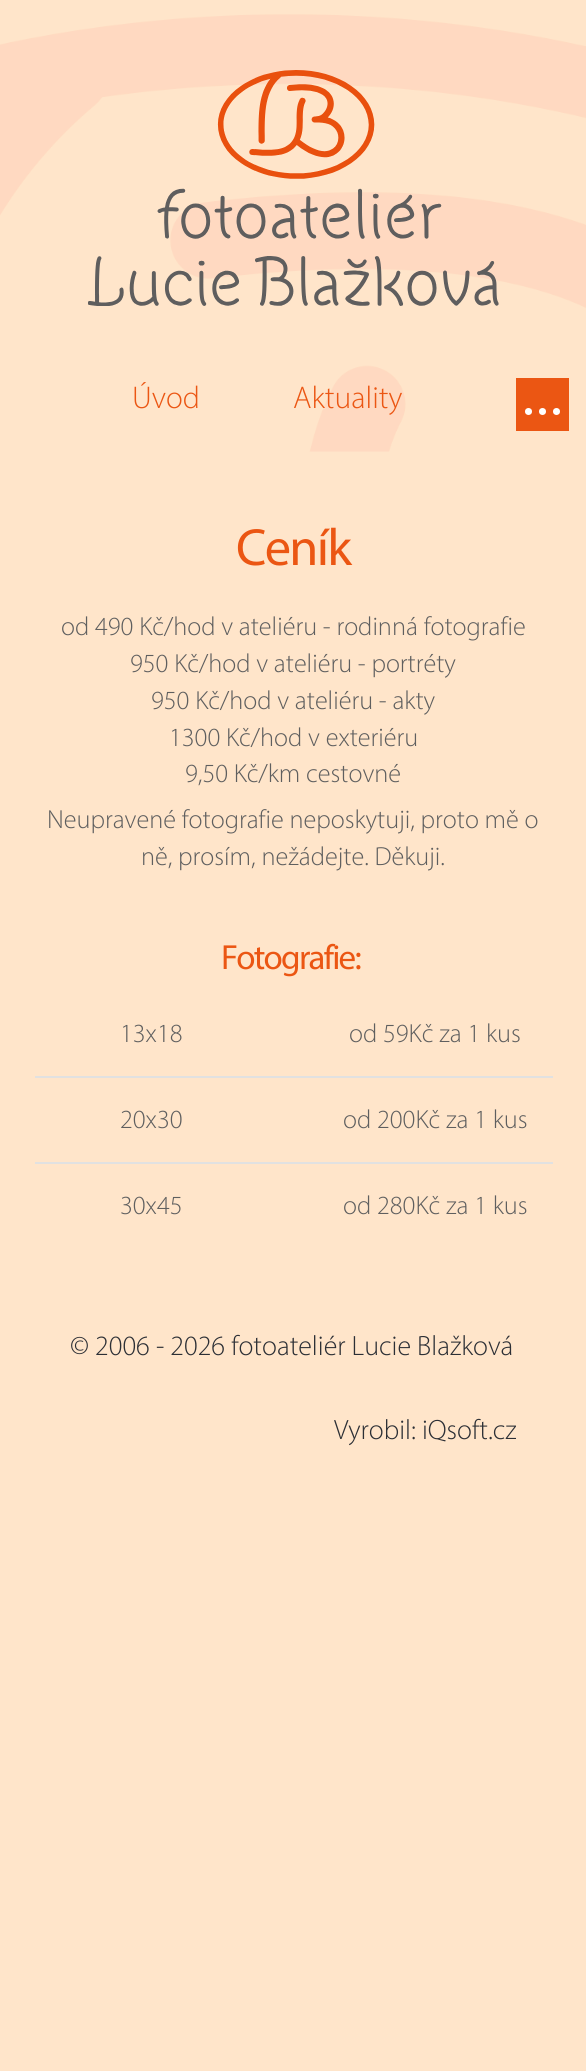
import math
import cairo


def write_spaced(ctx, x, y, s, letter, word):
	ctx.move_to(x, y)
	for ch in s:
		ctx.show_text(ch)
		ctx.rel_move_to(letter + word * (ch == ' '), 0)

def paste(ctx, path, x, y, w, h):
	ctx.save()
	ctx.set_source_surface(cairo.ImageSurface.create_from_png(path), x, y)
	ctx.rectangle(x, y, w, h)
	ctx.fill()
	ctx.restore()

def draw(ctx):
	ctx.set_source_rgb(1, 0.898, 0.792)
	ctx.paint()
	paste(ctx, 'media/1.png', 0, 14, 586, 438)
	paste(ctx, 'media/2.png', 88, 70, 411, 236)
	ctx.select_font_face('Myriad Light')
	ctx.set_font_size(31.5)
	ctx.set_source_rgb(0.918, 0.337, 0.078)
	ctx.move_to(132, 408)
	ctx.show_text('Úvod')
	ctx.move_to(293, 408)
	ctx.show_text('Aktuality')
	ctx.rectangle(516, 378, 53, 53)
	ctx.fill()
	ctx.set_source_rgb(1, 1, 1)
	ctx.arc(528.5, 411.5, 3.5, 0, 2 * math.pi)
	ctx.fill()
	ctx.arc(542.5, 411.5, 3.5, 0, 2 * math.pi)
	ctx.fill()
	ctx.arc(556.5, 411.5, 3.5, 0, 2 * math.pi)
	ctx.fill()
	ctx.select_font_face('Myriad')
	ctx.set_font_size(52.5)
	ctx.set_source_rgb(0.918, 0.337, 0.078)
	write_spaced(ctx, 236, 565, 'Ceník', -1.75, 0)
	ctx.select_font_face('Myriad Light')
	ctx.set_font_size(26.25)
	ctx.set_source_rgb(0.373, 0.373, 0.373)
	for x, y, s in [
		(61, 635, 'od 490 Kč/hod v ateliéru - rodinná fotografie'),
		(130, 672, '950 Kč/hod v ateliéru - portréty'),
		(151, 709, '950 Kč/hod v ateliéru - akty'),
		(169, 746, '1300 Kč/hod v exteriéru'),
		(185, 782, '9,50 Kč/km cestovné'),
		(47, 828, 'Neupravené fotografie neposkytuji, proto mě o'),
		(141, 865, 'ně, prosím, nežádejte. Děkuji.'),
	]:
		ctx.move_to(x, y)
		ctx.show_text(s)
	ctx.select_font_face('Myriad')
	ctx.set_font_size(35)
	ctx.set_source_rgb(0.918, 0.337, 0.078)
	write_spaced(ctx, 221, 969, 'Fotografie:', -1.75, 0)
	ctx.select_font_face('Myriad Light')
	ctx.set_font_size(26.25)
	ctx.set_source_rgb(0.373, 0.373, 0.373)
	ctx.move_to(120, 1042)
	ctx.show_text('13x18')
	ctx.set_source_rgb(0.882, 0.882, 0.882)
	ctx.rectangle(35, 1076, 518, 2)
	ctx.fill()
	ctx.set_source_rgb(0.373, 0.373, 0.373)
	ctx.move_to(349, 1042)
	ctx.show_text('od 59Kč za 1 kus')
	ctx.move_to(120, 1128)
	ctx.show_text('20x30')
	ctx.set_source_rgb(0.882, 0.882, 0.882)
	ctx.rectangle(35, 1162, 518, 2)
	ctx.fill()
	ctx.set_source_rgb(0.373, 0.373, 0.373)
	for x, y, s in [
		(343, 1128, 'od 200Kč za 1 kus'),
		(120, 1214, '30x45'),
		(343, 1214, 'od 280Kč za 1 kus'),
	]:
		ctx.move_to(x, y)
		ctx.show_text(s)
	ctx.set_font_size(28)
	ctx.set_source_rgb(0.173, 0.184, 0.208)
	ctx.move_to(70, 1355)
	ctx.show_text('© 2006 - 2026 fotoateliér Lucie Blažková')
	ctx.move_to(334, 1439)
	ctx.show_text('Vyrobil: iQsoft.cz')


surface = cairo.ImageSurface(cairo.FORMAT_RGB24, 586, 2071)
ctx = cairo.Context(surface)
options = cairo.FontOptions()
options.set_hint_metrics(cairo.HINT_METRICS_OFF)
options.set_hint_style(cairo.HINT_STYLE_NONE)
ctx.set_font_options(options)
ctx.set_miter_limit(4)
draw(ctx)
surface.write_to_png('image.png')
